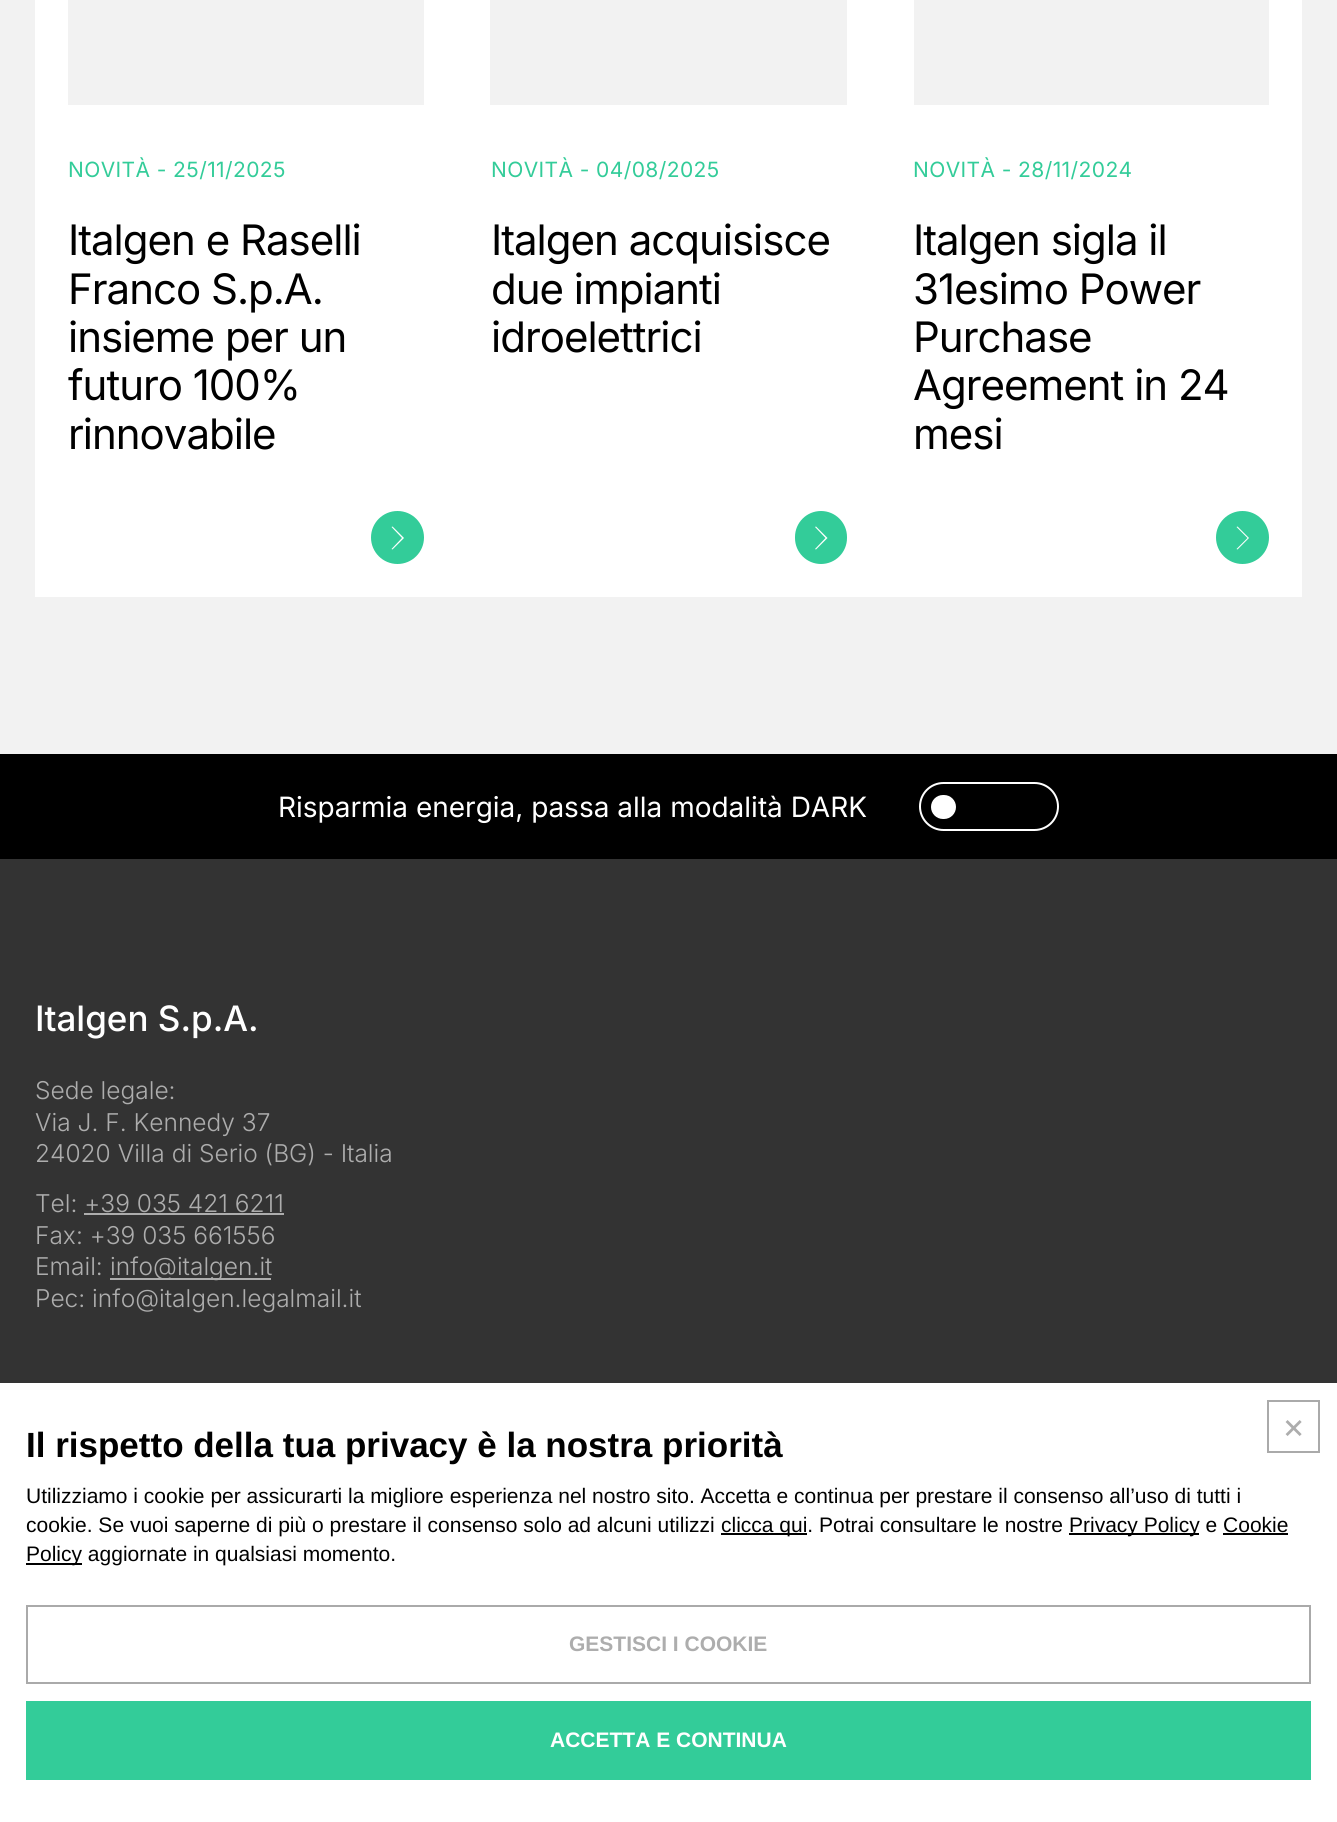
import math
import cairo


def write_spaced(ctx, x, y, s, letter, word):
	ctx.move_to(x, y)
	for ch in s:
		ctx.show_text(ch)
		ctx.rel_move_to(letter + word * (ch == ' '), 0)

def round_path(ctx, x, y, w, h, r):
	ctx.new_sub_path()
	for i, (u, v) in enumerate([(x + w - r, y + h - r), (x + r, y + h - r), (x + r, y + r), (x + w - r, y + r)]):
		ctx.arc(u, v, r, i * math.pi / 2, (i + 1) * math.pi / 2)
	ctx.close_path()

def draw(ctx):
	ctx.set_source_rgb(0, 0, 0)
	ctx.paint()
	ctx.set_source_rgb(0.949, 0.949, 0.949)
	ctx.rectangle(0, 0, 1337, 754)
	ctx.fill()
	ctx.set_source_rgb(1, 1, 1)
	ctx.rectangle(35, 0, 1267, 597)
	ctx.fill()
	ctx.set_source_rgb(0.949, 0.949, 0.949)
	ctx.rectangle(68, 0, 356, 105)
	ctx.fill()
	ctx.select_font_face('Inter')
	ctx.set_font_size(21)
	ctx.set_source_rgb(0.2, 0.8, 0.6)
	write_spaced(ctx, 68, 177, 'NOVITÀ - 25/11/2025', 0.4, 0)
	ctx.set_font_size(42)
	ctx.set_source_rgb(0, 0, 0)
	for x, y, s in [
		(68, 255, 'Italgen e Raselli'),
		(68, 304, 'Franco S.p.A.'),
		(68, 352, 'insieme per un'),
		(68, 400, 'futuro 100%'),
		(68, 449, 'rinnovabile'),
	]:
		write_spaced(ctx, x, y, s, -1, 0)
	ctx.set_source_rgb(0.2, 0.8, 0.6)
	ctx.new_path()
	ctx.arc(397.5, 537.5, 26.5, 0, 2 * math.pi)
	ctx.fill()
	ctx.set_source_rgb(1, 1, 1)
	ctx.new_path()
	ctx.move_to(392.5, 549.5)
	ctx.line_to(391.5, 549)
	ctx.line_to(402, 538)
	ctx.line_to(391.5, 527)
	ctx.line_to(392.5, 526.5)
	ctx.line_to(404, 538)
	ctx.close_path()
	ctx.fill()
	ctx.set_source_rgb(0.949, 0.949, 0.949)
	ctx.rectangle(490, 0, 357, 105)
	ctx.fill()
	ctx.set_font_size(21)
	ctx.set_source_rgb(0.2, 0.8, 0.6)
	write_spaced(ctx, 491, 177, 'NOVITÀ - 04/08/2025', 0.4, 0)
	ctx.set_font_size(42)
	ctx.set_source_rgb(0, 0, 0)
	for x, y, s in [
		(491, 255, 'Italgen acquisisce'),
		(491, 304, 'due impianti'),
		(491, 352, 'idroelettrici'),
	]:
		write_spaced(ctx, x, y, s, -1, 0)
	ctx.set_source_rgb(0.2, 0.8, 0.6)
	round_path(ctx, 795, 511, 52, 53, 26)
	ctx.fill()
	ctx.set_source_rgb(1, 1, 1)
	ctx.new_path()
	ctx.move_to(816, 549.5)
	ctx.line_to(815, 549)
	ctx.line_to(825.5, 538)
	ctx.line_to(815, 527)
	ctx.line_to(816, 526.5)
	ctx.line_to(827.5, 538)
	ctx.close_path()
	ctx.fill()
	ctx.set_source_rgb(0.949, 0.949, 0.949)
	ctx.rectangle(914, 0, 355, 105)
	ctx.fill()
	ctx.set_font_size(21)
	ctx.set_source_rgb(0.2, 0.8, 0.6)
	write_spaced(ctx, 913, 177, 'NOVITÀ - 28/11/2024', 0.4, 0)
	ctx.set_font_size(42)
	ctx.set_source_rgb(0, 0, 0)
	for x, y, s in [
		(913, 255, 'Italgen sigla il'),
		(913, 304, '31esimo Power'),
		(913, 352, 'Purchase'),
		(913, 400, 'Agreement in 24'),
		(913, 449, 'mesi'),
	]:
		write_spaced(ctx, x, y, s, -1, 0)
	ctx.set_source_rgb(0.2, 0.8, 0.6)
	ctx.new_path()
	ctx.arc(1242.5, 537.5, 26.5, 0, 2 * math.pi)
	ctx.fill()
	ctx.set_source_rgb(1, 1, 1)
	ctx.new_path()
	ctx.move_to(1237.5, 549.5)
	ctx.line_to(1236.5, 549)
	ctx.line_to(1247.5, 538)
	ctx.line_to(1236.5, 527)
	ctx.line_to(1237.5, 526.5)
	ctx.line_to(1249, 538)
	ctx.close_path()
	ctx.fill()
	ctx.set_font_size(28)
	ctx.move_to(278, 817)
	ctx.show_text('Risparmia energia, passa alla modalità DARK')
	round_path(ctx, 920, 783, 138, 47, 23.5)
	ctx.stroke()
	round_path(ctx, 931, 795, 25, 24, 12)
	ctx.fill()
	ctx.set_source_rgb(0.2, 0.2, 0.2)
	ctx.rectangle(0, 859, 1337, 524)
	ctx.fill()
	ctx.select_font_face('Inter Medium')
	ctx.set_font_size(35)
	ctx.set_source_rgb(1, 1, 1)
	ctx.move_to(35, 1031)
	ctx.show_text('Italgen S.p.A.')
	ctx.select_font_face('Inter Light')
	ctx.set_font_size(24.5)
	ctx.set_source_rgb(0.678, 0.678, 0.678)
	for x, y, s in [
		(35, 1099, 'Sede legale:'),
		(35, 1131, 'Via J. F. Kennedy 37'),
		(35, 1162, '24020 Villa di Serio (BG) - Italia'),
		(35, 1212, 'Tel: +39 035 421 6211'),
	]:
		ctx.move_to(x, y)
		ctx.show_text(s)
	ctx.rectangle(84, 1213, 200, 2)
	ctx.fill()
	ctx.move_to(35, 1244)
	ctx.show_text('Fax: +39 035 661556')
	ctx.move_to(35, 1275)
	ctx.show_text('Email:')
	ctx.rectangle(110, 1278, 161, 2)
	ctx.fill()
	ctx.move_to(110, 1275)
	ctx.show_text('info@italgen.it')
	ctx.move_to(35, 1307)
	ctx.show_text('Pec: info@italgen.legalmail.it')
	ctx.set_source_rgb(1, 1, 1)
	ctx.rectangle(0, 1383, 1337, 439)
	ctx.fill()
	ctx.rectangle(1268, 1401, 51, 51)
	ctx.set_source_rgb(0.667, 0.667, 0.667)
	ctx.stroke()
	ctx.select_font_face('Inter')
	ctx.set_font_size(35)
	ctx.set_source_rgb(0.678, 0.678, 0.678)
	ctx.move_to(1282, 1438)
	ctx.show_text('×')
	ctx.select_font_face('Liberation Sans', cairo.FONT_SLANT_NORMAL, cairo.FONT_WEIGHT_BOLD)
	ctx.set_source_rgb(0, 0, 0)
	ctx.move_to(26, 1457)
	ctx.show_text('Il rispetto della tua privacy è la nostra priorità')
	ctx.select_font_face('Liberation Sans')
	ctx.set_font_size(21)
	ctx.move_to(26, 1503)
	ctx.show_text('Utilizziamo i cookie per assicurarti la migliore esperienza nel nostro sito. Accetta e continua per prestare il consenso all’uso di tutti i')
	ctx.move_to(26, 1532)
	ctx.show_text('cookie. Se vuoi saperne di più o prestare il consenso solo ad alcuni utilizzi')
	ctx.rectangle(721, 1533, 86, 2)
	ctx.fill()
	ctx.move_to(721, 1532)
	ctx.show_text('clicca qui. Potrai consultare le nostre')
	ctx.rectangle(1069, 1533, 130, 2)
	ctx.fill()
	ctx.move_to(1069, 1532)
	ctx.show_text('Privacy Policy e Cookie')
	ctx.rectangle(26, 1563, 56, 2)
	ctx.fill()
	ctx.move_to(26, 1561)
	ctx.show_text('Policy aggiornate in qualsiasi momento.')
	ctx.rectangle(1223, 1533, 65, 2)
	ctx.fill()
	ctx.rectangle(27, 1606, 1283, 77)
	ctx.set_source_rgb(0.667, 0.667, 0.667)
	ctx.stroke()
	ctx.select_font_face('Liberation Sans', cairo.FONT_SLANT_NORMAL, cairo.FONT_WEIGHT_BOLD)
	ctx.set_source_rgb(0.678, 0.678, 0.678)
	ctx.move_to(569, 1651)
	ctx.show_text('GESTISCI I COOKIE')
	ctx.set_source_rgb(0.2, 0.8, 0.6)
	ctx.rectangle(26, 1701, 1285, 79)
	ctx.fill()
	ctx.set_source_rgb(1, 1, 1)
	ctx.move_to(550, 1747)
	ctx.show_text('ACCETTA E CONTINUA')


surface = cairo.ImageSurface(cairo.FORMAT_RGB24, 1337, 1822)
ctx = cairo.Context(surface)
options = cairo.FontOptions()
options.set_hint_metrics(cairo.HINT_METRICS_OFF)
options.set_hint_style(cairo.HINT_STYLE_NONE)
ctx.set_font_options(options)
ctx.set_miter_limit(4)
draw(ctx)
surface.write_to_png('image.png')
